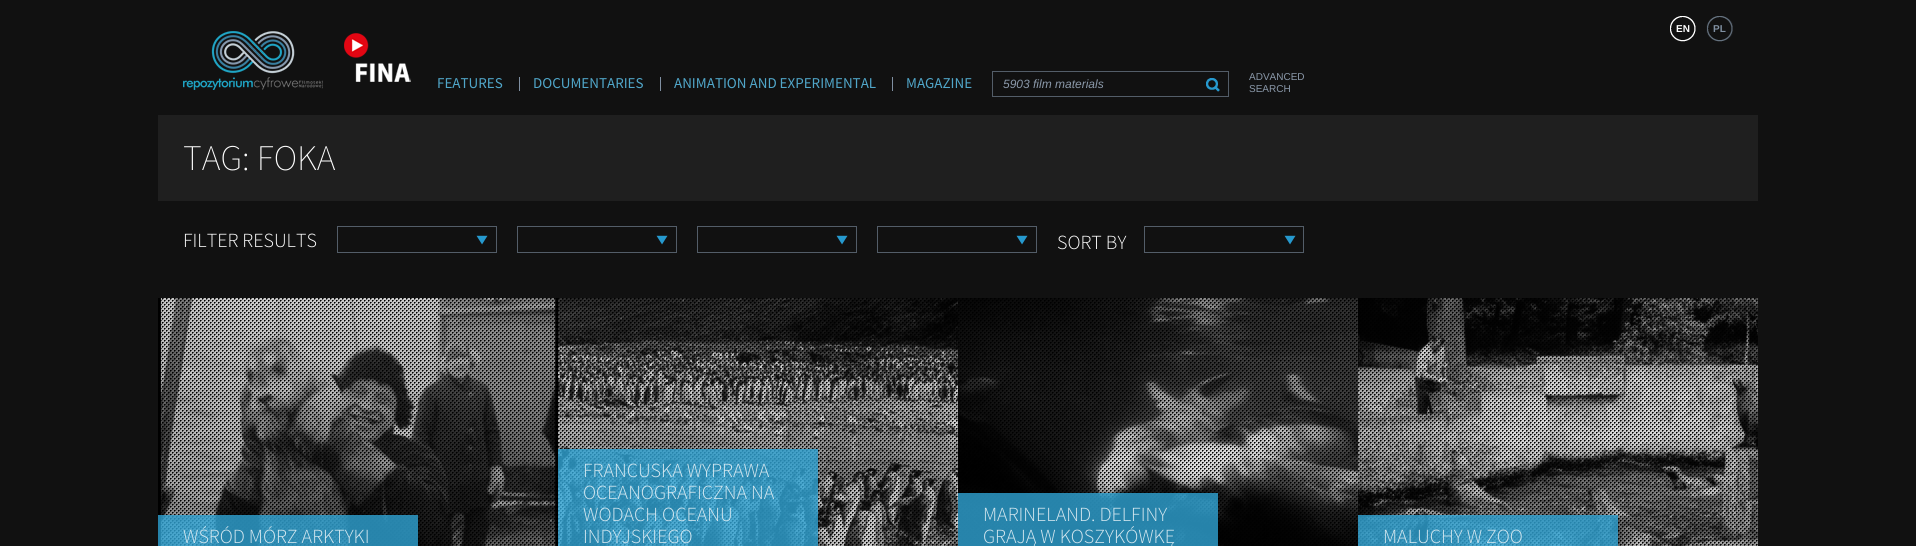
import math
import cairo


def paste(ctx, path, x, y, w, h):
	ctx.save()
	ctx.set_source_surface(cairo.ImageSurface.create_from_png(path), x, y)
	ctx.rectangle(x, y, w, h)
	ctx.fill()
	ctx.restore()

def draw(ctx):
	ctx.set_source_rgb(0.067, 0.067, 0.067)
	ctx.paint()
	paste(ctx, 'media/1.png', 1670, 16, 26, 26)
	paste(ctx, 'media/2.png', 1706, 16, 27, 26)
	ctx.select_font_face('Liberation Sans', cairo.FONT_SLANT_NORMAL, cairo.FONT_WEIGHT_BOLD)
	ctx.set_font_size(10)
	ctx.set_source_rgb(1, 1, 1)
	ctx.move_to(1676, 32)
	ctx.show_text('EN')
	ctx.set_source_rgb(0.502, 0.565, 0.635)
	ctx.move_to(1713, 32)
	ctx.show_text('PL')
	paste(ctx, 'media/3.png', 183, 31, 140, 59)
	paste(ctx, 'media/4.png', 344, 33, 67, 49)
	ctx.select_font_face('Source Sans Pro')
	ctx.set_font_size(15)
	ctx.set_source_rgb(0.314, 0.651, 0.788)
	ctx.move_to(437, 88)
	ctx.show_text('FEATURES')
	ctx.move_to(533, 88)
	ctx.show_text('DOCUMENTARIES')
	ctx.set_source_rgb(0.502, 0.565, 0.635)
	ctx.rectangle(519, 77, 1, 14)
	ctx.fill()
	ctx.set_source_rgb(0.314, 0.651, 0.788)
	ctx.move_to(674, 88)
	ctx.show_text('ANIMATION AND EXPERIMENTAL')
	ctx.set_source_rgb(0.502, 0.565, 0.635)
	ctx.rectangle(660, 77, 1, 14)
	ctx.fill()
	ctx.set_source_rgb(0.314, 0.651, 0.788)
	ctx.move_to(906, 88)
	ctx.show_text('MAGAZINE')
	ctx.set_source_rgb(0.502, 0.565, 0.635)
	ctx.rectangle(892, 77, 1, 14)
	ctx.fill()
	ctx.rectangle(992.5, 71.5, 236, 25)
	ctx.set_source_rgb(0.325, 0.365, 0.408)
	ctx.set_line_width(1)
	ctx.stroke()
	ctx.select_font_face('Liberation Sans', cairo.FONT_SLANT_ITALIC)
	ctx.set_font_size(12)
	ctx.set_source_rgb(0.545, 0.6, 0.667)
	ctx.move_to(1003, 88)
	ctx.show_text('5903 film materials')
	paste(ctx, 'media/5.png', 1206, 78, 14, 14)
	ctx.select_font_face('Liberation Sans')
	ctx.set_font_size(10)
	ctx.move_to(1249, 80)
	ctx.show_text('ADVANCED')
	ctx.move_to(1249, 92)
	ctx.show_text('SEARCH')
	ctx.set_source_rgb(0.122, 0.122, 0.122)
	ctx.rectangle(158, 115, 1600, 86)
	ctx.fill()
	ctx.select_font_face('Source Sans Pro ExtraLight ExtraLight')
	ctx.set_font_size(36)
	ctx.set_source_rgb(1, 1, 1)
	ctx.move_to(183, 170)
	ctx.show_text('TAG: FOKA')
	ctx.select_font_face('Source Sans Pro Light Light')
	ctx.set_font_size(20)
	ctx.move_to(183, 247)
	ctx.show_text('FILTER RESULTS')
	paste(ctx, 'media/6.png', 476, 235, 12, 10)
	ctx.rectangle(337.5, 226.5, 159, 26)
	ctx.set_source_rgb(0.325, 0.365, 0.408)
	ctx.stroke()
	paste(ctx, 'media/6.png', 656, 235, 12, 10)
	ctx.rectangle(517.5, 226.5, 159, 26)
	ctx.stroke()
	paste(ctx, 'media/6.png', 836, 235, 12, 10)
	ctx.rectangle(697.5, 226.5, 159, 26)
	ctx.stroke()
	paste(ctx, 'media/6.png', 1016, 235, 12, 10)
	ctx.rectangle(877.5, 226.5, 159, 26)
	ctx.stroke()
	ctx.set_source_rgb(1, 1, 1)
	ctx.move_to(1057, 249)
	ctx.show_text('SORT BY')
	paste(ctx, 'media/6.png', 1284, 235, 12, 10)
	ctx.rectangle(1144.5, 226.5, 159, 26)
	ctx.set_source_rgb(0.325, 0.365, 0.408)
	ctx.stroke()
	paste(ctx, 'media/7.png', 158, 298, 400, 248)
	paste(ctx, 'media/8.png', 160, 298, 396, 248)
	paste(ctx, 'media/9.png', 160, 298, 396, 248)
	ctx.set_source_rgba(0.188, 0.643, 0.831, 0.8)
	ctx.rectangle(158, 515, 260, 31)
	ctx.fill()
	ctx.set_source_rgb(0.839, 0.91, 0.941)
	ctx.move_to(183, 543)
	ctx.show_text('WŚRÓD MÓRZ ARKTYKI')
	paste(ctx, 'media/10.png', 558, 298, 400, 248)
	paste(ctx, 'media/11.png', 558, 298, 400, 248)
	ctx.set_source_rgba(0.188, 0.643, 0.831, 0.8)
	ctx.rectangle(558, 449, 260, 97)
	ctx.fill()
	ctx.set_source_rgb(0.839, 0.91, 0.941)
	for x, y, s in [
		(583, 477, 'FRANCUSKA WYPRAWA'),
		(583, 499, 'OCEANOGRAFICZNA NA'),
		(583, 521, 'WODACH OCEANU'),
		(583, 543, 'INDYJSKIEGO'),
	]:
		ctx.move_to(x, y)
		ctx.show_text(s)
	paste(ctx, 'media/12.png', 958, 298, 400, 248)
	paste(ctx, 'media/13.png', 958, 298, 400, 248)
	ctx.set_source_rgba(0.188, 0.643, 0.831, 0.8)
	ctx.rectangle(958, 493, 260, 53)
	ctx.fill()
	ctx.set_source_rgb(0.839, 0.91, 0.941)
	ctx.move_to(983, 521)
	ctx.show_text('MARINELAND. DELFINY')
	ctx.move_to(983, 543)
	ctx.show_text('GRAJĄ W KOSZYKÓWKĘ')
	paste(ctx, 'media/14.png', 1358, 298, 400, 248)
	paste(ctx, 'media/15.png', 1358, 298, 400, 248)
	ctx.set_source_rgba(0.188, 0.643, 0.831, 0.8)
	ctx.rectangle(1358, 515, 260, 31)
	ctx.fill()
	ctx.set_source_rgb(0.839, 0.91, 0.941)
	ctx.move_to(1383, 543)
	ctx.show_text('MALUCHY W ZOO')


surface = cairo.ImageSurface(cairo.FORMAT_RGB24, 1916, 546)
ctx = cairo.Context(surface)
options = cairo.FontOptions()
options.set_hint_metrics(cairo.HINT_METRICS_OFF)
options.set_hint_style(cairo.HINT_STYLE_NONE)
ctx.set_font_options(options)
ctx.set_miter_limit(4)
draw(ctx)
surface.write_to_png('image.png')
